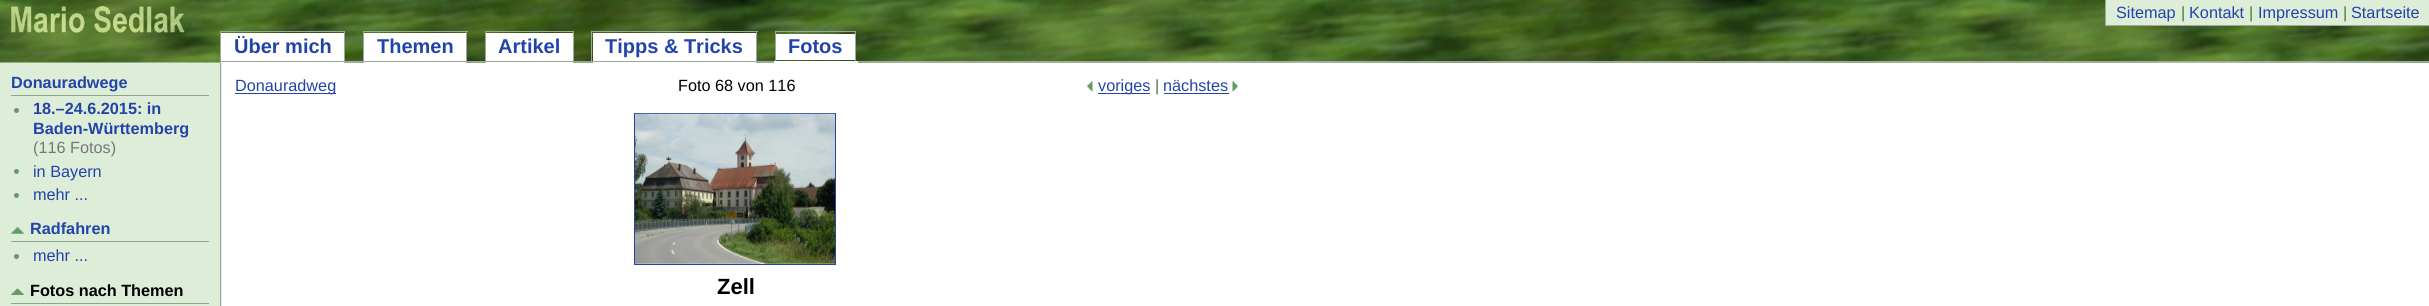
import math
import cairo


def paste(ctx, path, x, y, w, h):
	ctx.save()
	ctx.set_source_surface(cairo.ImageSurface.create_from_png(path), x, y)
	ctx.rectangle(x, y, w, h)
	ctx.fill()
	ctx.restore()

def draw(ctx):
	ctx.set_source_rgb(1, 1, 1)
	ctx.paint()
	paste(ctx, 'media/1.png', 0, 62, 222, 244)
	paste(ctx, 'media/2.png', 0, 0, 2429, 63)
	paste(ctx, 'media/3.png', 10, 4, 175, 29)
	ctx.set_source_rgb(0.867, 0.929, 0.843)
	ctx.rectangle(2106, 0, 323, 25)
	ctx.fill()
	ctx.set_source_rgb(0.6, 0.667, 0.6)
	ctx.rectangle(2105, 25, 324, 1)
	ctx.rectangle(2105, 0, 1, 26)
	ctx.fill()
	ctx.select_font_face('Liberation Sans')
	ctx.set_font_size(16.25)
	ctx.set_source_rgb(0.133, 0.267, 0.667)
	ctx.move_to(2116, 18)
	ctx.show_text('Sitemap')
	ctx.set_source_rgb(0.267, 0.467, 0.267)
	ctx.move_to(2181, 18)
	ctx.show_text('|')
	ctx.set_source_rgb(0.133, 0.267, 0.667)
	ctx.move_to(2189, 18)
	ctx.show_text('Kontakt')
	ctx.set_source_rgb(0.267, 0.467, 0.267)
	ctx.move_to(2249, 18)
	ctx.show_text('|')
	ctx.set_source_rgb(0.133, 0.267, 0.667)
	ctx.move_to(2258, 18)
	ctx.show_text('Impressum')
	ctx.set_source_rgb(0.267, 0.467, 0.267)
	ctx.move_to(2343, 18)
	ctx.show_text('|')
	ctx.set_source_rgb(0.133, 0.267, 0.667)
	ctx.move_to(2351, 18)
	ctx.show_text('Startseite')
	ctx.set_source_rgb(1, 1, 1)
	ctx.rectangle(221, 33, 123, 30)
	ctx.fill()
	ctx.set_source_rgb(0.6, 0.667, 0.6)
	ctx.rectangle(220, 31, 125, 1)
	ctx.fill()
	ctx.set_source_rgb(1, 1, 1)
	ctx.rectangle(364, 33, 102, 30)
	ctx.fill()
	ctx.set_source_rgb(0.6, 0.667, 0.6)
	ctx.rectangle(363, 31, 105, 1)
	ctx.fill()
	ctx.set_source_rgb(1, 1, 1)
	ctx.rectangle(486, 33, 87, 30)
	ctx.fill()
	ctx.set_source_rgb(0.6, 0.667, 0.6)
	ctx.rectangle(485, 31, 89, 1)
	ctx.fill()
	ctx.set_source_rgb(1, 1, 1)
	ctx.rectangle(593, 33, 163, 30)
	ctx.fill()
	ctx.set_source_rgb(0.6, 0.667, 0.6)
	ctx.rectangle(591, 31, 167, 1)
	ctx.rectangle(775, 31, 81, 1)
	ctx.rectangle(775, 31, 1, 32)
	ctx.rectangle(756, 61, 20, 1)
	ctx.rectangle(756, 31, 1, 32)
	ctx.rectangle(591, 61, 167, 1)
	ctx.rectangle(591, 31, 1, 32)
	ctx.rectangle(573, 61, 20, 1)
	ctx.rectangle(573, 31, 1, 32)
	ctx.rectangle(485, 61, 89, 1)
	ctx.rectangle(485, 31, 1, 32)
	ctx.rectangle(466, 61, 20, 1)
	ctx.rectangle(466, 31, 1, 32)
	ctx.rectangle(363, 61, 105, 1)
	ctx.rectangle(363, 31, 1, 32)
	ctx.rectangle(344, 61, 20, 1)
	ctx.rectangle(344, 31, 1, 32)
	ctx.rectangle(220, 61, 125, 1)
	ctx.rectangle(220, 31, 1, 32)
	ctx.fill()
	ctx.select_font_face('Liberation Sans', cairo.FONT_SLANT_NORMAL, cairo.FONT_WEIGHT_BOLD)
	ctx.set_font_size(20)
	ctx.set_source_rgb(0.133, 0.267, 0.667)
	for x, y, s in [
		(234, 53, 'Über mich'),
		(377, 53, 'Themen'),
		(498, 53, 'Artikel'),
		(605, 53, 'Tipps & Tricks'),
	]:
		ctx.move_to(x, y)
		ctx.show_text(s)
	ctx.set_source_rgb(1, 1, 1)
	ctx.rectangle(776, 34, 79, 26)
	ctx.fill()
	ctx.set_source_rgb(0.6, 0.667, 0.6)
	ctx.rectangle(855, 61, 1574, 1)
	ctx.rectangle(855, 31, 1, 32)
	ctx.fill()
	ctx.set_source_rgb(1, 1, 1)
	ctx.rectangle(774, 61, 84, 2)
	ctx.fill()
	ctx.set_source_rgb(0.133, 0.267, 0.667)
	ctx.move_to(788, 53)
	ctx.show_text('Fotos')
	ctx.set_source_rgb(0.867, 0.929, 0.843)
	ctx.rectangle(0, 63, 220, 243)
	ctx.fill()
	ctx.set_source_rgb(0.6, 0.667, 0.6)
	ctx.rectangle(220, 63, 1, 243)
	ctx.fill()
	ctx.set_source_rgb(0.533, 0.667, 0.533)
	ctx.rectangle(11, 95, 198, 1)
	ctx.fill()
	ctx.set_font_size(16.25)
	ctx.set_source_rgb(0.133, 0.267, 0.667)
	ctx.move_to(11, 88)
	ctx.show_text('Donauradwege')
	ctx.set_source_rgb(0.4, 0.6, 0.4)
	ctx.new_path()
	ctx.arc(16.5, 110.5, 2.5, 0, 2 * math.pi)
	ctx.fill()
	ctx.set_source_rgb(0.133, 0.267, 0.667)
	ctx.move_to(33, 114)
	ctx.show_text('18.–24.6.2015: in')
	ctx.move_to(33, 134)
	ctx.show_text('Baden-Württemberg')
	ctx.select_font_face('Liberation Sans')
	ctx.set_source_rgb(0.467, 0.467, 0.467)
	ctx.move_to(33, 153)
	ctx.show_text('(116 Fotos)')
	ctx.set_source_rgb(0.4, 0.6, 0.4)
	ctx.new_path()
	ctx.arc(16.5, 171.5, 2.5, 0, 2 * math.pi)
	ctx.fill()
	ctx.set_source_rgb(0.133, 0.267, 0.667)
	ctx.move_to(33, 177)
	ctx.show_text('in Bayern')
	ctx.set_source_rgb(0.4, 0.6, 0.4)
	ctx.new_path()
	ctx.arc(16.5, 195.5, 2.5, 0, 2 * math.pi)
	ctx.fill()
	ctx.set_source_rgb(0.133, 0.267, 0.667)
	ctx.move_to(33, 200)
	ctx.show_text('mehr ...')
	ctx.set_source_rgb(0.533, 0.667, 0.533)
	ctx.rectangle(11, 241, 198, 1)
	ctx.fill()
	paste(ctx, 'media/4.png', 11, 227, 13, 7)
	ctx.select_font_face('Liberation Sans', cairo.FONT_SLANT_NORMAL, cairo.FONT_WEIGHT_BOLD)
	ctx.set_source_rgb(0.133, 0.267, 0.667)
	ctx.move_to(30, 234)
	ctx.show_text('Radfahren')
	ctx.set_source_rgb(0.4, 0.6, 0.4)
	ctx.new_path()
	ctx.arc(16.5, 256.5, 2.5, 0, 2 * math.pi)
	ctx.fill()
	ctx.select_font_face('Liberation Sans')
	ctx.set_source_rgb(0.133, 0.267, 0.667)
	ctx.move_to(33, 261)
	ctx.show_text('mehr ...')
	ctx.set_source_rgb(0.533, 0.667, 0.533)
	ctx.rectangle(11, 303, 198, 1)
	ctx.fill()
	paste(ctx, 'media/5.png', 11, 288, 13, 7)
	ctx.select_font_face('Liberation Sans', cairo.FONT_SLANT_NORMAL, cairo.FONT_WEIGHT_BOLD)
	ctx.set_source_rgb(0, 0, 0)
	ctx.move_to(30, 296)
	ctx.show_text('Fotos nach Themen')
	ctx.set_source_rgb(0.133, 0.267, 0.667)
	ctx.rectangle(235, 93, 101, 1)
	ctx.fill()
	ctx.select_font_face('Liberation Sans')
	ctx.move_to(235, 91)
	ctx.show_text('Donauradweg')
	ctx.set_source_rgb(0, 0, 0)
	ctx.move_to(678, 91)
	ctx.show_text('Foto 68 von 116')
	paste(ctx, 'media/6.png', 1087, 81, 6, 11)
	ctx.set_source_rgb(0.133, 0.267, 0.667)
	ctx.rectangle(1098, 93, 52, 1)
	ctx.fill()
	ctx.move_to(1098, 91)
	ctx.show_text('voriges')
	ctx.set_source_rgb(0.267, 0.467, 0.267)
	ctx.move_to(1155, 91)
	ctx.show_text('|')
	ctx.set_source_rgb(0.133, 0.267, 0.667)
	ctx.move_to(1163, 91)
	ctx.show_text('nächstes')
	ctx.rectangle(1164, 93, 65, 1)
	ctx.fill()
	paste(ctx, 'media/7.png', 1232, 81, 6, 11)
	ctx.rectangle(634.5, 113.5, 201, 151)
	ctx.set_line_width(1)
	ctx.stroke()
	paste(ctx, 'media/8.png', 635, 113, 200, 151)
	ctx.select_font_face('Liberation Sans', cairo.FONT_SLANT_NORMAL, cairo.FONT_WEIGHT_BOLD)
	ctx.set_font_size(22)
	ctx.set_source_rgb(0, 0, 0)
	ctx.move_to(717, 294)
	ctx.show_text('Zell')


surface = cairo.ImageSurface(cairo.FORMAT_RGB24, 2429, 306)
ctx = cairo.Context(surface)
options = cairo.FontOptions()
options.set_hint_metrics(cairo.HINT_METRICS_OFF)
options.set_hint_style(cairo.HINT_STYLE_NONE)
ctx.set_font_options(options)
ctx.set_miter_limit(4)
draw(ctx)
surface.write_to_png('image.png')
